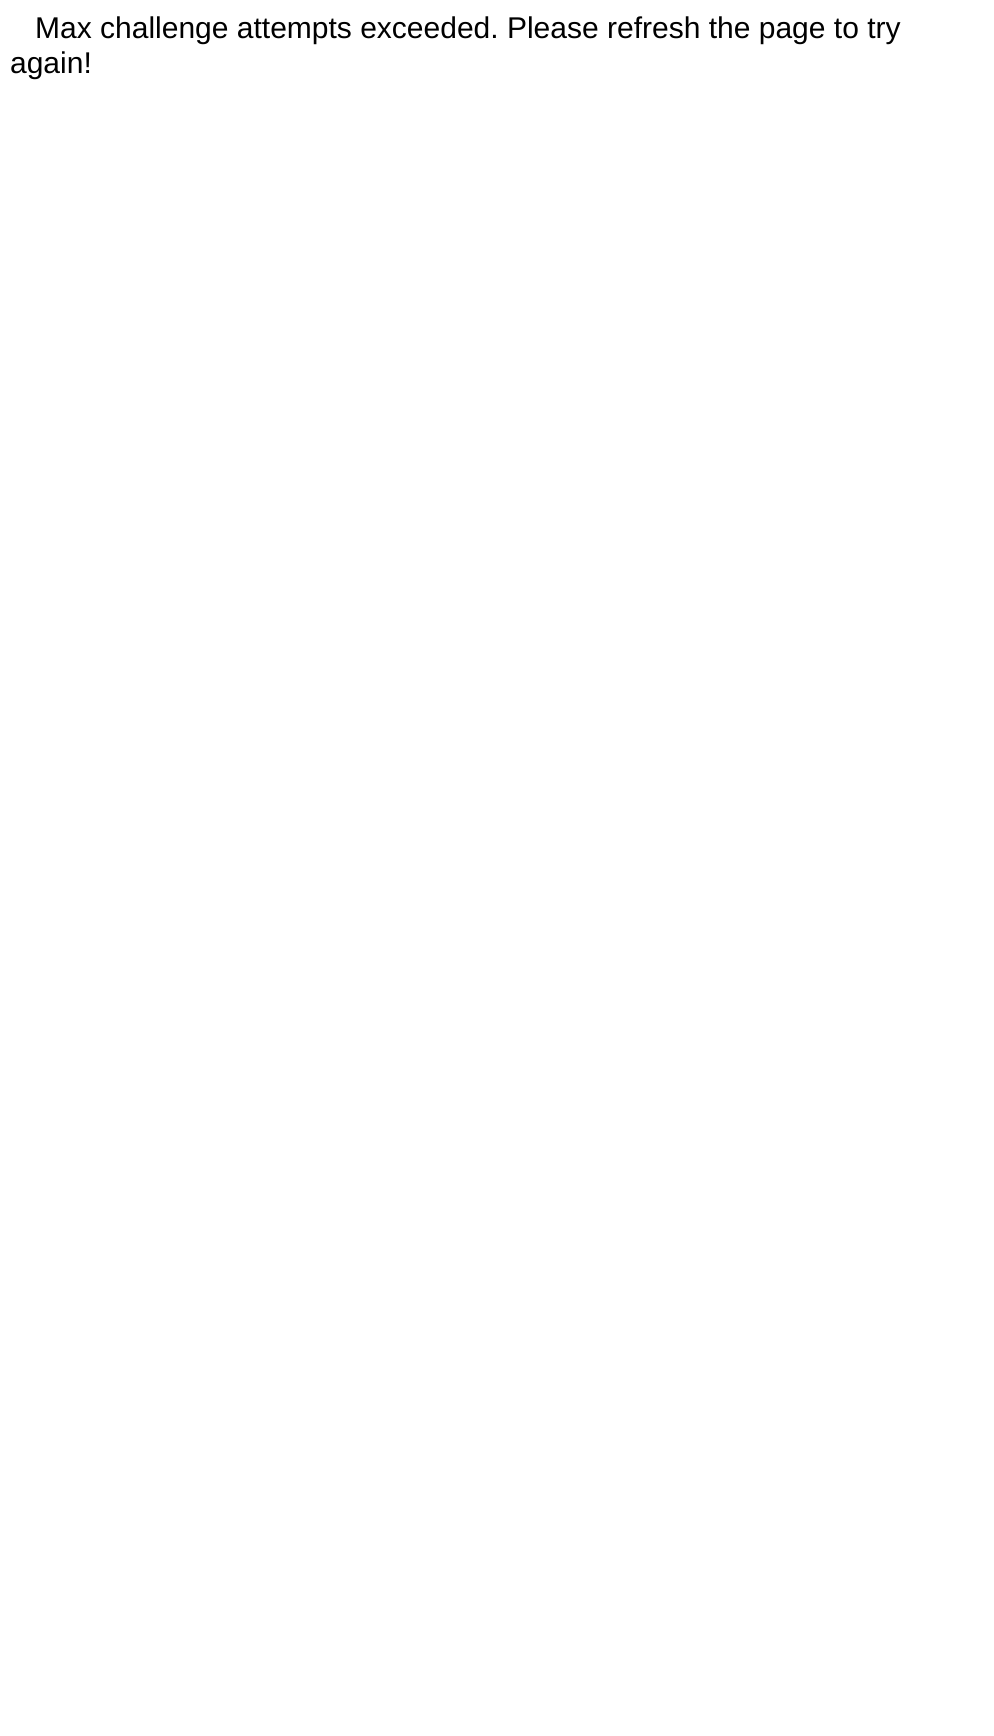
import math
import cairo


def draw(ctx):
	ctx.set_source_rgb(1, 1, 1)
	ctx.paint()
	ctx.select_font_face('Liberation Sans')
	ctx.set_font_size(30)
	ctx.set_source_rgb(0, 0, 0)
	ctx.move_to(35, 38)
	ctx.show_text('Max challenge attempts exceeded. Please refresh the page to try')
	ctx.move_to(10, 73)
	ctx.show_text('again!')


surface = cairo.ImageSurface(cairo.FORMAT_RGB24, 994, 1736)
ctx = cairo.Context(surface)
options = cairo.FontOptions()
options.set_hint_metrics(cairo.HINT_METRICS_OFF)
options.set_hint_style(cairo.HINT_STYLE_NONE)
ctx.set_font_options(options)
ctx.set_miter_limit(4)
draw(ctx)
surface.write_to_png('image.png')
